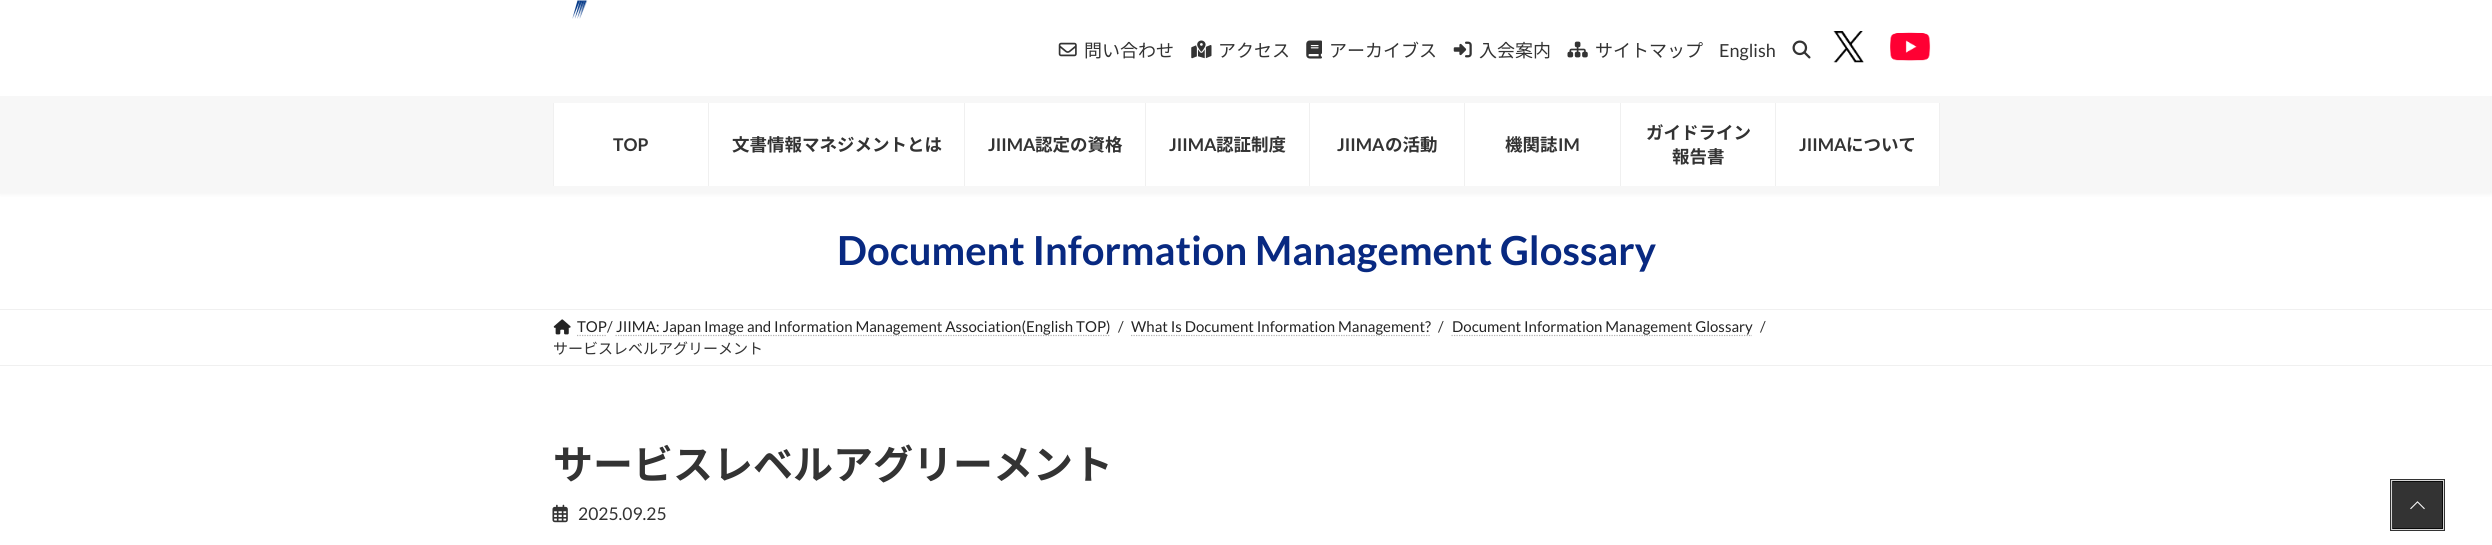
import math
import cairo


def round_path(ctx, x, y, w, h, r):
	ctx.new_sub_path()
	for i, (u, v) in enumerate([(x + w - r, y + h - r), (x + r, y + h - r), (x + r, y + r), (x + w - r, y + r)]):
		ctx.arc(u, v, r, i * math.pi / 2, (i + 1) * math.pi / 2)
	ctx.close_path()

def blur_box(ctx, x, y, w, h, r, blur, alpha):
	ctx.push_group_with_content(cairo.CONTENT_ALPHA)
	ctx.set_operator(cairo.OPERATOR_SOURCE)
	for i in range(15, -16, -2):
		e = blur * i / 6
		if min(w, h) + 2 * e > 0:
			ctx.set_source_rgba(0, 0, 0, alpha * math.erfc((i - 1) / 8.5) / 2)
			round_path(ctx, x - e, y - e, w + 2 * e, h + 2 * e, max(0, min(r + e + blur * .6, min(w, h) / 2 + e)))
			ctx.fill()
	ctx.mask(ctx.pop_group())

def paste(ctx, path, x, y, w, h):
	ctx.save()
	ctx.set_source_surface(cairo.ImageSurface.create_from_png(path), x, y)
	ctx.rectangle(x, y, w, h)
	ctx.fill()
	ctx.restore()

def draw(ctx):
	ctx.set_source_rgb(1, 1, 1)
	ctx.paint()
	ctx.set_source_rgb(0, 0, 0)
	blur_box(ctx, 0, -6, 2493, 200, 0, 2, 0.05)
	ctx.set_source_rgb(1, 1, 1)
	ctx.rectangle(0, 0, 2492, 96)
	ctx.fill()
	paste(ctx, 'media/1.png', 572, 0, 16, 19)
	paste(ctx, 'media/2.png', 1058, 42, 19, 15)
	ctx.select_font_face('Noto Sans JP')
	ctx.set_font_size(18)
	ctx.set_source_rgb(0.2, 0.2, 0.2)
	ctx.move_to(1084, 57)
	ctx.show_text('問い合わせ')
	paste(ctx, 'media/3.png', 1191, 40, 21, 19)
	ctx.move_to(1218, 57)
	ctx.show_text('アクセス')
	paste(ctx, 'media/4.png', 1306, 40, 16, 19)
	ctx.move_to(1329, 57)
	ctx.show_text('アーカイブス')
	paste(ctx, 'media/5.png', 1453, 41, 19, 17)
	ctx.move_to(1479, 57)
	ctx.show_text('入会案内')
	paste(ctx, 'media/6.png', 1567, 41, 21, 17)
	ctx.move_to(1595, 57)
	ctx.show_text('サイトマップ')
	ctx.select_font_face('Lato')
	ctx.move_to(1719, 57)
	ctx.show_text('English')
	paste(ctx, 'media/7.png', 1792, 40, 19, 19)
	paste(ctx, 'media/8.png', 1833, 31, 31, 32)
	paste(ctx, 'media/9.png', 1890, 32, 41, 29)
	ctx.set_source_rgb(0.965, 0.965, 0.965)
	ctx.rectangle(0, 96, 2490, 97)
	ctx.fill()
	ctx.set_source_rgb(1, 1, 1)
	ctx.rectangle(554, 103, 1385, 83)
	ctx.fill()
	ctx.set_source_rgb(0.941, 0.941, 0.941)
	ctx.rectangle(708, 103, 1, 83)
	ctx.rectangle(553, 103, 1, 83)
	ctx.fill()
	ctx.select_font_face('Lato', cairo.FONT_SLANT_NORMAL, cairo.FONT_WEIGHT_BOLD)
	ctx.set_font_size(17.5)
	ctx.set_source_rgb(0.2, 0.2, 0.2)
	ctx.move_to(613, 151)
	ctx.show_text('TOP')
	ctx.set_source_rgb(0.941, 0.941, 0.941)
	ctx.rectangle(964, 103, 1, 83)
	ctx.fill()
	ctx.select_font_face('Noto Sans JP', cairo.FONT_SLANT_NORMAL, cairo.FONT_WEIGHT_BOLD)
	ctx.set_source_rgb(0.2, 0.2, 0.2)
	ctx.move_to(732, 151)
	ctx.show_text('文書情報マネジメントとは')
	ctx.set_source_rgb(0.941, 0.941, 0.941)
	ctx.rectangle(1145, 103, 1, 83)
	ctx.fill()
	ctx.select_font_face('Lato', cairo.FONT_SLANT_NORMAL, cairo.FONT_WEIGHT_BOLD)
	ctx.set_source_rgb(0.2, 0.2, 0.2)
	ctx.move_to(988, 151)
	ctx.show_text('JIIMA')
	ctx.select_font_face('Noto Sans JP', cairo.FONT_SLANT_NORMAL, cairo.FONT_WEIGHT_BOLD)
	ctx.move_to(1035, 151)
	ctx.show_text('認定の資格')
	ctx.set_source_rgb(0.941, 0.941, 0.941)
	ctx.rectangle(1309, 103, 1, 83)
	ctx.fill()
	ctx.select_font_face('Lato', cairo.FONT_SLANT_NORMAL, cairo.FONT_WEIGHT_BOLD)
	ctx.set_source_rgb(0.2, 0.2, 0.2)
	ctx.move_to(1169, 151)
	ctx.show_text('JIIMA')
	ctx.select_font_face('Noto Sans JP', cairo.FONT_SLANT_NORMAL, cairo.FONT_WEIGHT_BOLD)
	ctx.move_to(1216, 151)
	ctx.show_text('認証制度')
	ctx.set_source_rgb(0.941, 0.941, 0.941)
	ctx.rectangle(1464, 103, 1, 83)
	ctx.fill()
	ctx.select_font_face('Lato', cairo.FONT_SLANT_NORMAL, cairo.FONT_WEIGHT_BOLD)
	ctx.set_source_rgb(0.2, 0.2, 0.2)
	ctx.move_to(1337, 151)
	ctx.show_text('JIIMA')
	ctx.select_font_face('Noto Sans JP', cairo.FONT_SLANT_NORMAL, cairo.FONT_WEIGHT_BOLD)
	ctx.move_to(1385, 151)
	ctx.show_text('の活動')
	ctx.set_source_rgb(0.941, 0.941, 0.941)
	ctx.rectangle(1620, 103, 1, 83)
	ctx.fill()
	ctx.set_source_rgb(0.2, 0.2, 0.2)
	ctx.move_to(1505, 151)
	ctx.show_text('機関誌')
	ctx.select_font_face('Lato', cairo.FONT_SLANT_NORMAL, cairo.FONT_WEIGHT_BOLD)
	ctx.move_to(1558, 151)
	ctx.show_text('IM')
	ctx.set_source_rgb(0.941, 0.941, 0.941)
	ctx.rectangle(1775, 103, 1, 83)
	ctx.fill()
	ctx.select_font_face('Noto Sans JP', cairo.FONT_SLANT_NORMAL, cairo.FONT_WEIGHT_BOLD)
	ctx.set_source_rgb(0.2, 0.2, 0.2)
	ctx.move_to(1646, 139)
	ctx.show_text('ガイドライン')
	ctx.move_to(1672, 163)
	ctx.show_text('報告書')
	ctx.set_source_rgb(0.941, 0.941, 0.941)
	ctx.rectangle(1939, 103, 1, 83)
	ctx.fill()
	ctx.select_font_face('Lato', cairo.FONT_SLANT_NORMAL, cairo.FONT_WEIGHT_BOLD)
	ctx.set_source_rgb(0.2, 0.2, 0.2)
	ctx.move_to(1799, 151)
	ctx.show_text('JIIMA')
	ctx.select_font_face('Noto Sans JP', cairo.FONT_SLANT_NORMAL, cairo.FONT_WEIGHT_BOLD)
	ctx.move_to(1846, 151)
	ctx.show_text('について')
	ctx.select_font_face('Lato', cairo.FONT_SLANT_NORMAL, cairo.FONT_WEIGHT_BOLD)
	ctx.set_font_size(40)
	ctx.set_source_rgb(0.035, 0.161, 0.506)
	ctx.move_to(837, 265)
	ctx.show_text('Document Information Management Glossary')
	ctx.set_source_rgb(0.941, 0.941, 0.941)
	ctx.rectangle(0, 309, 2492, 1)
	ctx.fill()
	ctx.rectangle(0, 365, 2492, 1)
	ctx.fill()
	paste(ctx, 'media/10.png', 553, 319, 18, 16)
	ctx.select_font_face('Lato')
	ctx.set_font_size(15)
	ctx.set_source_rgb(0.141, 0.141, 0.141)
	ctx.move_to(577, 332)
	ctx.show_text('TOP')
	ctx.new_path()
	ctx.move_to(577, 335.5)
	ctx.line_to(607, 335.5)
	ctx.set_source_rgb(0.702, 0.702, 0.702)
	ctx.set_line_width(1.2)
	ctx.set_dash([1.25, 1.25])
	ctx.stroke()
	ctx.set_source_rgb(0.2, 0.2, 0.2)
	ctx.move_to(607, 332)
	ctx.show_text('/')
	ctx.new_path()
	ctx.move_to(615.5, 335.5)
	ctx.line_to(1110.5, 335.5)
	ctx.set_source_rgb(0.702, 0.702, 0.702)
	ctx.stroke()
	ctx.set_source_rgb(0.141, 0.141, 0.141)
	ctx.move_to(616, 332)
	ctx.show_text('JIIMA: Japan Image and Information Management Association(English TOP)')
	ctx.set_source_rgb(0.2, 0.2, 0.2)
	ctx.move_to(1118, 332)
	ctx.show_text('/')
	ctx.new_path()
	ctx.move_to(1131, 335.5)
	ctx.line_to(1431, 335.5)
	ctx.set_source_rgb(0.702, 0.702, 0.702)
	ctx.stroke()
	ctx.set_source_rgb(0.141, 0.141, 0.141)
	ctx.move_to(1131, 332)
	ctx.show_text('What Is Document Information Management?')
	ctx.set_source_rgb(0.2, 0.2, 0.2)
	ctx.move_to(1438, 332)
	ctx.show_text('/')
	ctx.new_path()
	ctx.move_to(1451.5, 335.5)
	ctx.line_to(1752, 335.5)
	ctx.set_source_rgb(0.702, 0.702, 0.702)
	ctx.stroke()
	ctx.set_source_rgb(0.141, 0.141, 0.141)
	ctx.move_to(1452, 332)
	ctx.show_text('Document Information Management Glossary')
	ctx.set_source_rgb(0.2, 0.2, 0.2)
	ctx.move_to(1760, 332)
	ctx.show_text('/')
	ctx.select_font_face('Noto Sans JP')
	ctx.move_to(553, 354)
	ctx.show_text('サービスレベルアグリーメント')
	ctx.select_font_face('Noto Sans JP', cairo.FONT_SLANT_NORMAL, cairo.FONT_WEIGHT_BOLD)
	ctx.set_font_size(40)
	ctx.move_to(553, 479)
	ctx.show_text('サービスレベルアグリーメント')
	paste(ctx, 'media/11.png', 552, 504, 16, 19)
	ctx.select_font_face('Lato')
	ctx.set_font_size(17.5)
	ctx.move_to(578, 520)
	ctx.show_text('2025.09.25')
	ctx.rectangle(2391.5, 480.5, 52, 49)
	ctx.set_line_width(3)
	ctx.set_dash([])
	ctx.stroke()
	ctx.rectangle(2391.5, 480.5, 52, 49)
	ctx.set_source_rgb(0.839, 0.839, 0.839)
	ctx.set_line_width(1)
	ctx.stroke()
	ctx.set_source_rgba(0, 0, 0, 0.8)
	ctx.rectangle(2393, 481, 50, 48)
	ctx.fill()
	paste(ctx, 'media/12.png', 2410, 501, 15, 9)


surface = cairo.ImageSurface(cairo.FORMAT_RGB24, 2492, 545)
ctx = cairo.Context(surface)
options = cairo.FontOptions()
options.set_hint_metrics(cairo.HINT_METRICS_OFF)
options.set_hint_style(cairo.HINT_STYLE_NONE)
ctx.set_font_options(options)
ctx.set_miter_limit(4)
draw(ctx)
surface.write_to_png('image.png')
